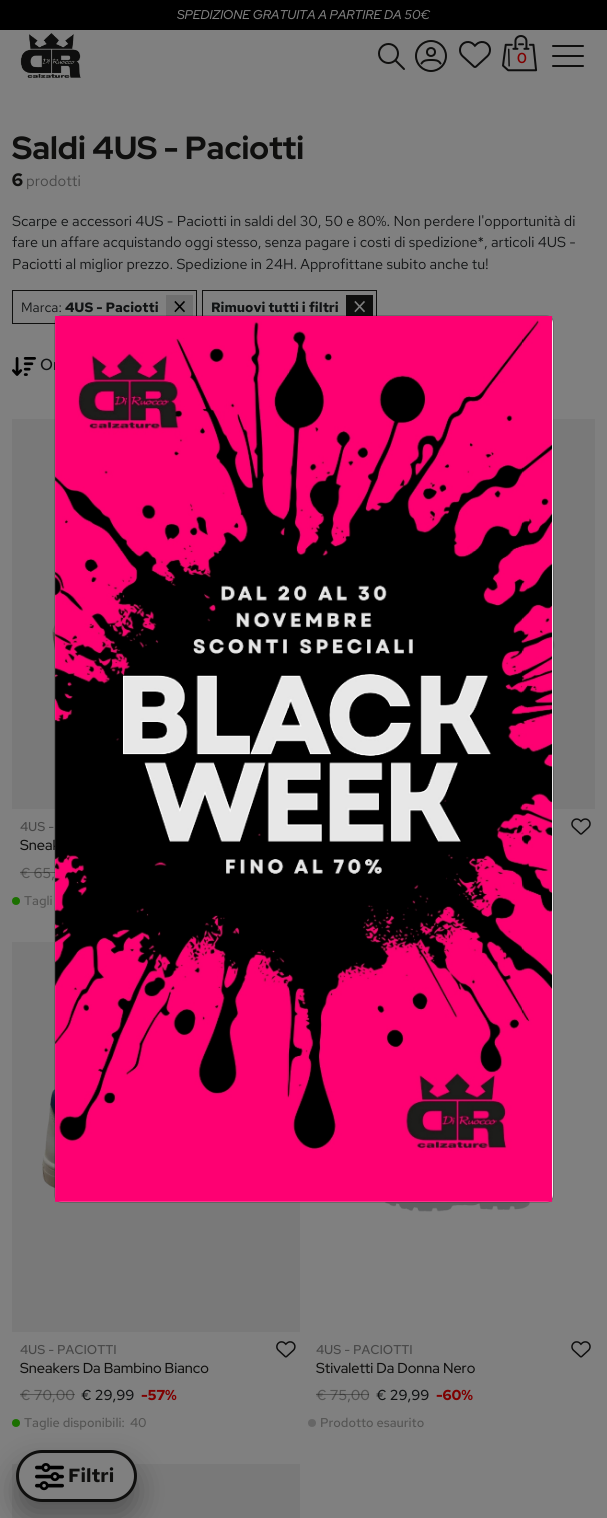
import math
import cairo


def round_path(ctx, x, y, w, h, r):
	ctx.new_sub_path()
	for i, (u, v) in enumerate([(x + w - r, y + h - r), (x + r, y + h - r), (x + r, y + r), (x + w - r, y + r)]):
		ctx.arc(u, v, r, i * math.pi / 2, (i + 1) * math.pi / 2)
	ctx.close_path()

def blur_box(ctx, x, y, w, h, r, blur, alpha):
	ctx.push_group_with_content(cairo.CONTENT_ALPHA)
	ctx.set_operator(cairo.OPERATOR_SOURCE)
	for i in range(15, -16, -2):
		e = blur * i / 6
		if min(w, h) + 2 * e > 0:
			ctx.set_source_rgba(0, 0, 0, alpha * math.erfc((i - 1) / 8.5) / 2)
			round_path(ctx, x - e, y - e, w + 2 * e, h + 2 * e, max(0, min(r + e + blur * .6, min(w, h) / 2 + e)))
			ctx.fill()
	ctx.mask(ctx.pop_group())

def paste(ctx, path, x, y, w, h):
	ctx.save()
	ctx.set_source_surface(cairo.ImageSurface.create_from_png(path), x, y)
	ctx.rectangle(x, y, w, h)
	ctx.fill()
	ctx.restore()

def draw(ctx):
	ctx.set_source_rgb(0.502, 0.502, 0.502)
	ctx.paint()
	ctx.set_source_rgb(0, 0, 0)
	ctx.rectangle(0, 0, 607, 30)
	ctx.fill()
	ctx.select_font_face('Red Hat Display Medium', cairo.FONT_SLANT_ITALIC)
	ctx.set_font_size(12.75)
	ctx.set_source_rgb(0.502, 0.502, 0.502)
	ctx.move_to(177, 19)
	ctx.show_text('SPEDIZIONE GRATUITA A PARTIRE DA 50€')
	paste(ctx, 'media/1.png', 20, 33, 61, 45)
	ctx.arc(388.5, 53.5, 9.5, 0, 2 * math.pi)
	ctx.set_source_rgb(0.059, 0.059, 0.055)
	ctx.stroke()
	ctx.new_path()
	ctx.move_to(396, 61)
	ctx.line_to(404, 69)
	ctx.set_line_cap(cairo.LINE_CAP_ROUND)
	ctx.stroke()
	ctx.arc(431, 56, 15, 0, 2 * math.pi)
	ctx.set_line_cap(cairo.LINE_CAP_BUTT)
	ctx.stroke()
	ctx.arc(431, 52, 4, 0, 2 * math.pi)
	ctx.stroke()
	ctx.new_path()
	ctx.move_to(440.5, 63.5)
	ctx.curve_to(438.5, 60, 435, 60, 431, 60)
	ctx.curve_to(427.5, 60, 423.5, 60, 421.5, 63.5)
	ctx.set_line_cap(cairo.LINE_CAP_ROUND)
	ctx.stroke()
	paste(ctx, 'media/2.png', 459, 41, 32, 27)
	paste(ctx, 'media/3.png', 502, 35, 36, 37)
	ctx.select_font_face('Red Hat Display', cairo.FONT_SLANT_NORMAL, cairo.FONT_WEIGHT_BOLD)
	ctx.set_font_size(14.4)
	ctx.set_source_rgb(0.498, 0, 0)
	ctx.move_to(517, 63)
	ctx.show_text('0')
	ctx.new_path()
	ctx.move_to(553, 46)
	ctx.line_to(583, 46)
	ctx.move_to(553, 56)
	ctx.line_to(583, 56)
	ctx.move_to(553, 66)
	ctx.line_to(583, 66)
	ctx.set_source_rgb(0.059, 0.059, 0.055)
	ctx.stroke()
	ctx.select_font_face('Red Hat Display ExtraBold')
	ctx.set_font_size(32)
	ctx.move_to(12, 159)
	ctx.show_text('Saldi 4US - Paciotti')
	ctx.select_font_face('Red Hat Text', cairo.FONT_SLANT_NORMAL, cairo.FONT_WEIGHT_BOLD)
	ctx.set_font_size(18)
	ctx.move_to(12, 186)
	ctx.show_text('6')
	ctx.select_font_face('Red Hat Text')
	ctx.set_font_size(15)
	ctx.set_source_rgb(0.275, 0.275, 0.275)
	ctx.move_to(26, 186)
	ctx.show_text('prodotti')
	ctx.set_font_size(14.4)
	ctx.set_source_rgb(0.067, 0.075, 0.082)
	for x, y, s in [
		(12, 226, 'Scarpe e accessori 4US - Paciotti in saldi del 30, 50 e 80%. Non perdere l\'opportunità di'),
		(12, 247, 'fare un affare acquistando oggi stesso, senza pagare i costi di spedizione*, articoli 4US -'),
		(12, 269, 'Paciotti al miglior prezzo. Spedizione in 24H. Approfittane subito anche tu!'),
	]:
		ctx.move_to(x, y)
		ctx.show_text(s)
	ctx.rectangle(12.5, 290.5, 184, 33)
	ctx.set_source_rgb(0.059, 0.059, 0.055)
	ctx.set_line_width(1)
	ctx.set_line_cap(cairo.LINE_CAP_BUTT)
	ctx.stroke()
	ctx.set_font_size(13.5)
	ctx.set_source_rgb(0.067, 0.075, 0.082)
	ctx.move_to(21, 312)
	ctx.show_text('Marca:')
	ctx.select_font_face('Red Hat Text', cairo.FONT_SLANT_NORMAL, cairo.FONT_WEIGHT_BOLD)
	ctx.move_to(65, 312)
	ctx.show_text('4US - Paciotti')
	ctx.set_source_rgb(0.435, 0.435, 0.435)
	ctx.rectangle(166, 295, 27, 21)
	ctx.fill()
	ctx.select_font_face('Red Hat Text')
	ctx.set_font_size(29)
	ctx.set_source_rgb(0, 0, 0)
	ctx.move_to(171, 317)
	ctx.show_text('×')
	ctx.rectangle(202.5, 290.5, 174, 33)
	ctx.set_source_rgb(0.059, 0.059, 0.055)
	ctx.stroke()
	ctx.select_font_face('Red Hat Text', cairo.FONT_SLANT_NORMAL, cairo.FONT_WEIGHT_BOLD)
	ctx.set_font_size(13.5)
	ctx.set_source_rgb(0.067, 0.075, 0.082)
	ctx.move_to(211, 312)
	ctx.show_text('Rimuovi tutti i filtri')
	ctx.set_source_rgb(0.059, 0.059, 0.055)
	ctx.rectangle(346, 295, 27, 21)
	ctx.fill()
	ctx.select_font_face('Red Hat Text')
	ctx.set_font_size(29)
	ctx.set_source_rgb(0.502, 0.502, 0.502)
	ctx.move_to(351, 317)
	ctx.show_text('×')
	paste(ctx, 'media/4.png', 12, 357, 24, 19)
	ctx.select_font_face('Red Hat Text Medium')
	ctx.set_font_size(16)
	ctx.set_source_rgb(0.067, 0.075, 0.082)
	ctx.move_to(40, 370)
	ctx.show_text('Or')
	ctx.set_source_rgb(0.475, 0.475, 0.475)
	ctx.rectangle(553, 419, 42, 390)
	ctx.fill()
	paste(ctx, 'media/5.png', 553, 637, 2, 14)
	paste(ctx, 'media/6.png', 571, 818, 20, 17)
	ctx.rectangle(12, 419, 43, 390)
	ctx.fill()
	paste(ctx, 'media/7.png', 52, 624, 3, 26)
	ctx.set_font_size(12.75)
	ctx.set_source_rgb(0.275, 0.275, 0.275)
	ctx.move_to(20, 831)
	ctx.show_text('4US -')
	ctx.select_font_face('Red Hat Display Medium')
	ctx.set_font_size(14.4)
	ctx.set_source_rgb(0.059, 0.059, 0.055)
	ctx.move_to(20, 850)
	ctx.show_text('Sneak')
	ctx.select_font_face('Red Hat Text Medium')
	ctx.set_source_rgb(0.325, 0.325, 0.322)
	ctx.move_to(20, 878)
	ctx.show_text('€ 65,')
	ctx.set_source_rgba(0.059, 0.059, 0.055, 0.4)
	ctx.rectangle(20, 872, 35, 1)
	ctx.fill()
	ctx.set_source_rgb(0.106, 0.439, 0)
	ctx.arc(16, 901, 4, 0, 2 * math.pi)
	ctx.fill()
	ctx.set_font_size(12.75)
	ctx.set_source_rgb(0.325, 0.325, 0.322)
	ctx.move_to(24, 905)
	ctx.show_text('Tagli')
	ctx.set_source_rgb(0.475, 0.475, 0.475)
	ctx.rectangle(12, 942, 288, 390)
	ctx.fill()
	paste(ctx, 'media/8.png', 42, 1089, 13, 100)
	ctx.set_source_rgb(0.275, 0.275, 0.275)
	ctx.move_to(20, 1354)
	ctx.show_text('4US - PACIOTTI')
	paste(ctx, 'media/9.png', 276, 1341, 20, 17)
	ctx.select_font_face('Red Hat Display Medium')
	ctx.set_font_size(14.4)
	ctx.set_source_rgb(0.059, 0.059, 0.055)
	ctx.move_to(20, 1373)
	ctx.show_text('Sneakers Da Bambino Bianco')
	ctx.select_font_face('Red Hat Text Medium')
	ctx.set_source_rgb(0.325, 0.325, 0.322)
	ctx.move_to(20, 1400)
	ctx.show_text('€ 70,00')
	ctx.set_source_rgba(0.059, 0.059, 0.055, 0.4)
	ctx.rectangle(20, 1394, 55, 1)
	ctx.fill()
	ctx.set_source_rgb(0.067, 0.075, 0.082)
	ctx.move_to(81, 1400)
	ctx.show_text('€ 29,99')
	ctx.select_font_face('Red Hat Text', cairo.FONT_SLANT_NORMAL, cairo.FONT_WEIGHT_BOLD)
	ctx.set_source_rgb(0.498, 0, 0)
	ctx.move_to(141, 1400)
	ctx.show_text('-57%')
	ctx.set_source_rgb(0.106, 0.439, 0)
	ctx.new_path()
	ctx.arc(16, 1423, 4, 0, 2 * math.pi)
	ctx.fill()
	ctx.select_font_face('Red Hat Text Medium')
	ctx.set_font_size(12.75)
	ctx.set_source_rgb(0.325, 0.325, 0.322)
	ctx.move_to(24, 1427)
	ctx.show_text('Taglie disponibili:')
	ctx.move_to(130, 1427)
	ctx.show_text('40')
	paste(ctx, 'media/10.png', 372, 1202, 158, 10)
	ctx.set_source_rgb(0.275, 0.275, 0.275)
	ctx.move_to(316, 1354)
	ctx.show_text('4US - PACIOTTI')
	paste(ctx, 'media/11.png', 571, 1341, 20, 17)
	ctx.select_font_face('Red Hat Display Medium')
	ctx.set_font_size(14.4)
	ctx.set_source_rgb(0.059, 0.059, 0.055)
	ctx.move_to(316, 1373)
	ctx.show_text('Stivaletti Da Donna Nero')
	ctx.select_font_face('Red Hat Text Medium')
	ctx.set_source_rgb(0.325, 0.325, 0.322)
	ctx.move_to(316, 1400)
	ctx.show_text('€ 75,00')
	ctx.set_source_rgba(0.059, 0.059, 0.055, 0.4)
	ctx.rectangle(316, 1394, 53, 1)
	ctx.fill()
	ctx.set_source_rgb(0.067, 0.075, 0.082)
	ctx.move_to(376, 1400)
	ctx.show_text('€ 29,99')
	ctx.select_font_face('Red Hat Text', cairo.FONT_SLANT_NORMAL, cairo.FONT_WEIGHT_BOLD)
	ctx.set_source_rgb(0.498, 0, 0)
	ctx.move_to(436, 1400)
	ctx.show_text('-60%')
	ctx.set_source_rgb(0.4, 0.4, 0.4)
	ctx.new_path()
	ctx.arc(312, 1423, 4, 0, 2 * math.pi)
	ctx.fill()
	ctx.select_font_face('Red Hat Text Medium')
	ctx.set_font_size(12.75)
	ctx.set_source_rgb(0.325, 0.325, 0.322)
	ctx.move_to(320, 1427)
	ctx.show_text('Prodotto esaurito')
	ctx.set_source_rgb(0.475, 0.475, 0.475)
	ctx.rectangle(12, 1464, 288, 54)
	ctx.fill()
	ctx.set_source_rgb(0, 0, 0)
	blur_box(ctx, 16, 1465, 121, 52, 26, 15, 0.3)
	ctx.set_source_rgb(0.502, 0.502, 0.502)
	round_path(ctx, 17.5, 1451.5, 118, 49, 24.5)
	ctx.fill_preserve()
	ctx.set_source_rgb(0.059, 0.059, 0.055)
	ctx.set_line_width(3)
	ctx.stroke()
	paste(ctx, 'media/12.png', 35, 1463, 29, 28)
	ctx.select_font_face('Red Hat Text', cairo.FONT_SLANT_NORMAL, cairo.FONT_WEIGHT_BOLD)
	ctx.set_font_size(19)
	ctx.move_to(68, 1482)
	ctx.show_text('Filtri')
	ctx.set_source_rgb(1, 1, 1)
	round_path(ctx, 55, 316, 498, 886, 7)
	ctx.fill()
	round_path(ctx, 54.5, 315.5, 499, 887, 7.5)
	ctx.set_source_rgba(0, 0, 0, 0.18)
	ctx.set_line_width(1)
	ctx.stroke()
	paste(ctx, 'media/13.png', 55, 316, 498, 886)


surface = cairo.ImageSurface(cairo.FORMAT_RGB24, 607, 1518)
ctx = cairo.Context(surface)
options = cairo.FontOptions()
options.set_hint_metrics(cairo.HINT_METRICS_OFF)
options.set_hint_style(cairo.HINT_STYLE_NONE)
ctx.set_font_options(options)
ctx.set_miter_limit(4)
draw(ctx)
surface.write_to_png('image.png')
